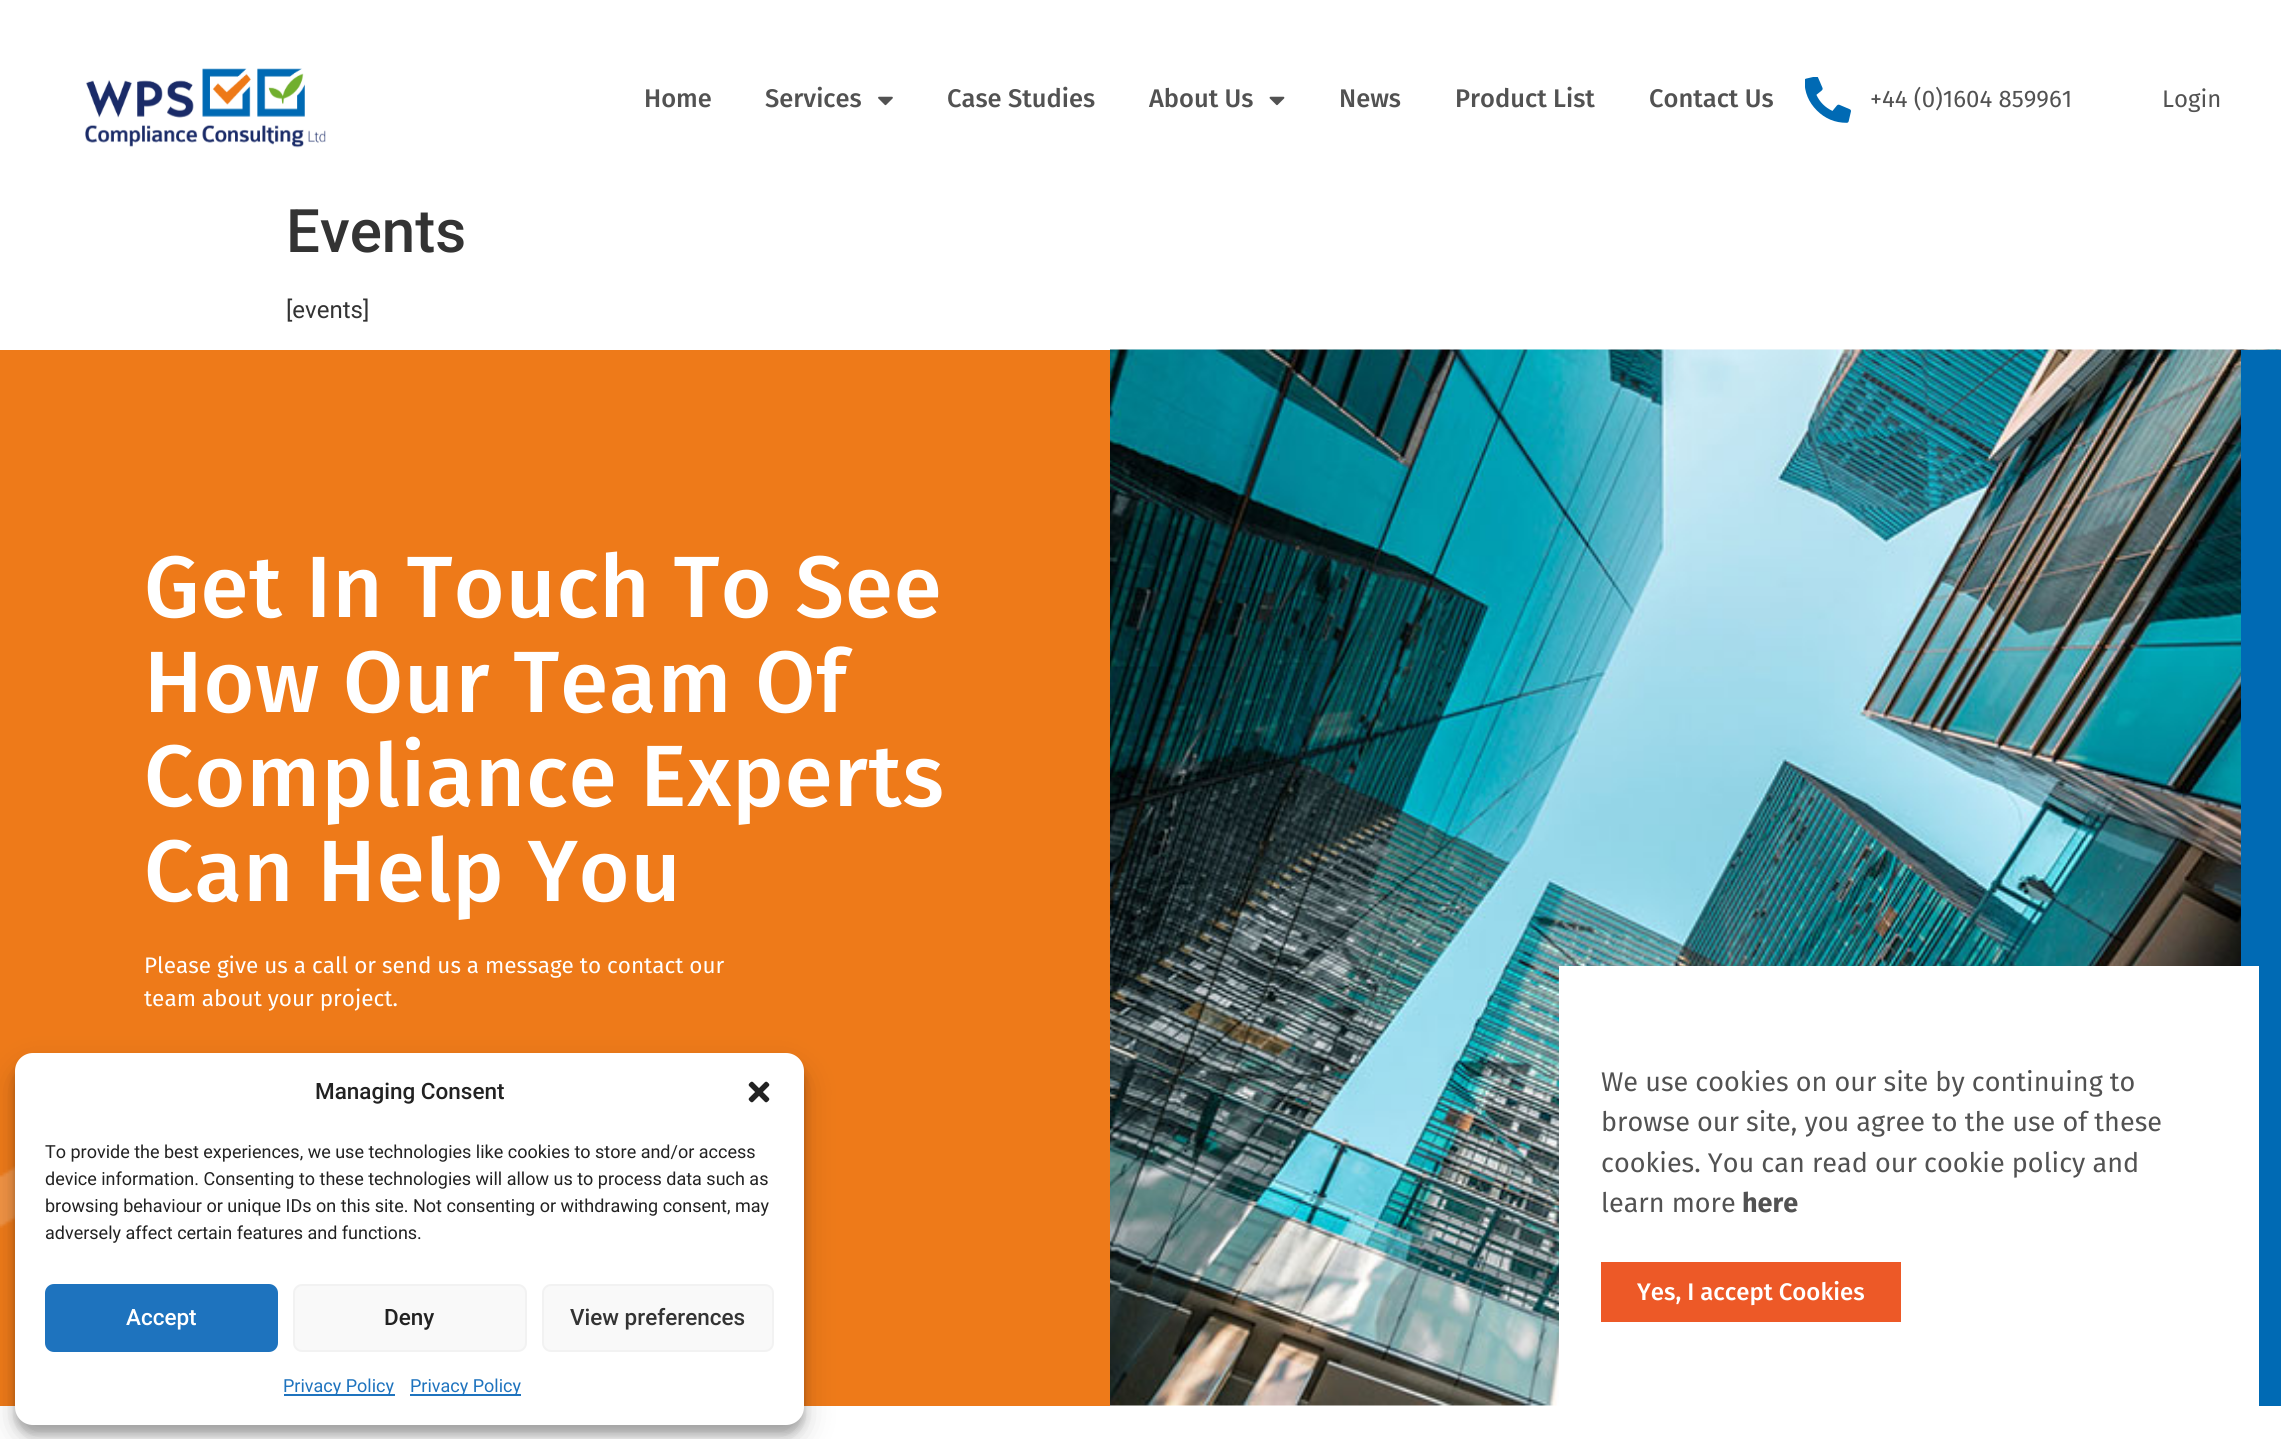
import math
import cairo


def write_spaced(ctx, x, y, s, letter, word):
	ctx.move_to(x, y)
	for ch in s:
		ctx.show_text(ch)
		ctx.rel_move_to(letter + word * (ch == ' '), 0)

def round_path(ctx, x, y, w, h, r):
	ctx.new_sub_path()
	for i, (u, v) in enumerate([(x + w - r, y + h - r), (x + r, y + h - r), (x + r, y + r), (x + w - r, y + r)]):
		ctx.arc(u, v, r, i * math.pi / 2, (i + 1) * math.pi / 2)
	ctx.close_path()

def blur_box(ctx, x, y, w, h, r, blur, alpha):
	ctx.push_group_with_content(cairo.CONTENT_ALPHA)
	ctx.set_operator(cairo.OPERATOR_SOURCE)
	for i in range(15, -16, -2):
		e = blur * i / 6
		if min(w, h) + 2 * e > 0:
			ctx.set_source_rgba(0, 0, 0, alpha * math.erfc((i - 1) / 8.5) / 2)
			round_path(ctx, x - e, y - e, w + 2 * e, h + 2 * e, max(0, min(r + e + blur * .6, min(w, h) / 2 + e)))
			ctx.fill()
	ctx.mask(ctx.pop_group())

def paste(ctx, path, x, y, w, h):
	ctx.save()
	ctx.set_source_surface(cairo.ImageSurface.create_from_png(path), x, y)
	ctx.rectangle(x, y, w, h)
	ctx.fill()
	ctx.restore()

def draw(ctx):
	ctx.set_source_rgb(1, 1, 1)
	ctx.paint()
	paste(ctx, 'media/1.png', 85, 68, 241, 80)
	ctx.select_font_face('Fira Sans Medium')
	ctx.set_font_size(25.5)
	ctx.set_source_rgb(0.322, 0.322, 0.322)
	ctx.move_to(644, 107)
	ctx.show_text('Home')
	ctx.move_to(765, 107)
	ctx.show_text('Services')
	paste(ctx, 'media/2.png', 878, 96, 15, 10)
	ctx.move_to(947, 107)
	ctx.show_text('Case Studies')
	ctx.move_to(1149, 107)
	ctx.show_text('About Us')
	paste(ctx, 'media/3.png', 1269, 96, 16, 10)
	for x, y, s in [
		(1339, 107, 'News'),
		(1455, 107, 'Product List'),
		(1649, 107, 'Contact Us'),
	]:
		ctx.move_to(x, y)
		ctx.show_text(s)
	paste(ctx, 'media/4.png', 1805, 77, 46, 46)
	ctx.select_font_face('Fira Sans')
	ctx.set_font_size(24)
	ctx.move_to(1870, 107)
	ctx.show_text('+44 (0)1604 859961')
	ctx.move_to(2162, 107)
	ctx.show_text('Login')
	ctx.select_font_face('Roboto Medium')
	ctx.set_font_size(60)
	ctx.set_source_rgb(0.2, 0.2, 0.2)
	ctx.move_to(286, 252)
	ctx.show_text('Events')
	ctx.select_font_face('Roboto')
	ctx.set_font_size(24)
	ctx.move_to(286, 318)
	ctx.show_text('[events]')
	ctx.set_source_rgb(0.933, 0.478, 0.098)
	ctx.rectangle(0, 350, 1110, 1056)
	ctx.fill()
	ctx.select_font_face('Fira Sans Medium')
	ctx.set_font_size(87)
	ctx.set_source_rgb(1, 1, 1)
	for x, y, s in [
		(144, 617, 'Get In Touch To See'),
		(144, 712, 'How Our Team Of'),
		(144, 806, 'Compliance Experts'),
		(144, 901, 'Can Help You'),
	]:
		write_spaced(ctx, x, y, s, 1, 0)
	ctx.select_font_face('Fira Sans')
	ctx.set_font_size(22.5)
	ctx.move_to(144, 973)
	ctx.show_text('Please give us a call or send us a message to contact our')
	ctx.move_to(144, 1006)
	ctx.show_text('team about your project.')
	paste(ctx, 'media/5.png', 0, 1166, 15, 62)
	paste(ctx, 'media/6.png', 1110, 349, 1171, 1057)
	ctx.set_source_rgb(0, 0.416, 0.706)
	ctx.rectangle(2241, 350, 40, 1056)
	ctx.fill()
	ctx.set_source_rgb(0, 0, 0)
	blur_box(ctx, 15, 1062, 789, 372, 18, 4.5, 0.23)
	blur_box(ctx, 15, 1068, 789, 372, 18, 15, 0.19)
	ctx.set_source_rgb(1, 1, 1)
	round_path(ctx, 15, 1053, 789, 372, 18)
	ctx.fill()
	ctx.select_font_face('Roboto Medium')
	ctx.set_source_rgb(0.133, 0.133, 0.133)
	ctx.move_to(315, 1099)
	ctx.show_text('Managing Consent')
	paste(ctx, 'media/7.png', 748, 1081, 22, 22)
	ctx.select_font_face('Roboto')
	ctx.set_font_size(18)
	for x, y, s in [
		(45, 1158, 'To provide the best experiences, we use technologies like cookies to store and/or access'),
		(45, 1185, 'device information. Consenting to these technologies will allow us to process data such as'),
		(45, 1212, 'browsing behaviour or unique IDs on this site. Not consenting or withdrawing consent, may'),
		(45, 1239, 'adversely affect certain features and functions.'),
	]:
		ctx.move_to(x, y)
		ctx.show_text(s)
	ctx.set_source_rgb(0.118, 0.451, 0.745)
	round_path(ctx, 46, 1285, 231, 66, 8)
	ctx.fill_preserve()
	ctx.stroke()
	ctx.select_font_face('Roboto Medium')
	ctx.set_font_size(22.5)
	ctx.set_source_rgb(1, 1, 1)
	ctx.move_to(126, 1325)
	ctx.show_text('Accept')
	ctx.set_source_rgb(0.976, 0.976, 0.976)
	round_path(ctx, 294, 1285, 232, 66, 8)
	ctx.fill_preserve()
	ctx.set_source_rgb(0.949, 0.949, 0.949)
	ctx.stroke()
	ctx.set_source_rgb(0.133, 0.133, 0.133)
	ctx.move_to(384, 1325)
	ctx.show_text('Deny')
	ctx.set_source_rgb(0.976, 0.976, 0.976)
	round_path(ctx, 543, 1285, 230, 66, 8)
	ctx.fill_preserve()
	ctx.set_source_rgb(0.949, 0.949, 0.949)
	ctx.stroke()
	ctx.set_source_rgb(0.2, 0.2, 0.2)
	ctx.move_to(570, 1325)
	ctx.show_text('View preferences')
	ctx.set_source_rgb(0.118, 0.451, 0.745)
	ctx.rectangle(284, 1394, 111, 2)
	ctx.fill()
	ctx.select_font_face('Roboto')
	ctx.set_font_size(18)
	ctx.move_to(283, 1392)
	ctx.show_text('Privacy Policy')
	ctx.rectangle(410, 1394, 111, 2)
	ctx.fill()
	ctx.move_to(410, 1392)
	ctx.show_text('Privacy Policy')
	ctx.set_source_rgb(1, 1, 1)
	ctx.rectangle(1559, 966, 700, 440)
	ctx.fill()
	ctx.select_font_face('Fira Sans')
	ctx.set_font_size(27)
	ctx.set_source_rgb(0.322, 0.322, 0.322)
	for x, y, s in [
		(1601, 1091, 'We use cookies on our site by continuing to'),
		(1601, 1131, 'browse our site, you agree to the use of these'),
		(1601, 1172, 'cookies. You can read our cookie policy and'),
		(1601, 1212, 'learn more'),
	]:
		ctx.move_to(x, y)
		ctx.show_text(s)
	ctx.select_font_face('Fira Sans', cairo.FONT_SLANT_NORMAL, cairo.FONT_WEIGHT_BOLD)
	ctx.move_to(1742, 1212)
	ctx.show_text('here')
	ctx.set_source_rgb(0.929, 0.349, 0.153)
	ctx.rectangle(1601, 1262, 300, 60)
	ctx.fill()
	ctx.select_font_face('Fira Sans Medium')
	ctx.set_font_size(24)
	ctx.set_source_rgb(1, 1, 1)
	ctx.move_to(1637, 1300)
	ctx.show_text('Yes, I accept Cookies')


surface = cairo.ImageSurface(cairo.FORMAT_RGB24, 2281, 1439)
ctx = cairo.Context(surface)
options = cairo.FontOptions()
options.set_hint_metrics(cairo.HINT_METRICS_OFF)
options.set_hint_style(cairo.HINT_STYLE_NONE)
ctx.set_font_options(options)
ctx.set_miter_limit(4)
draw(ctx)
surface.write_to_png('image.png')
